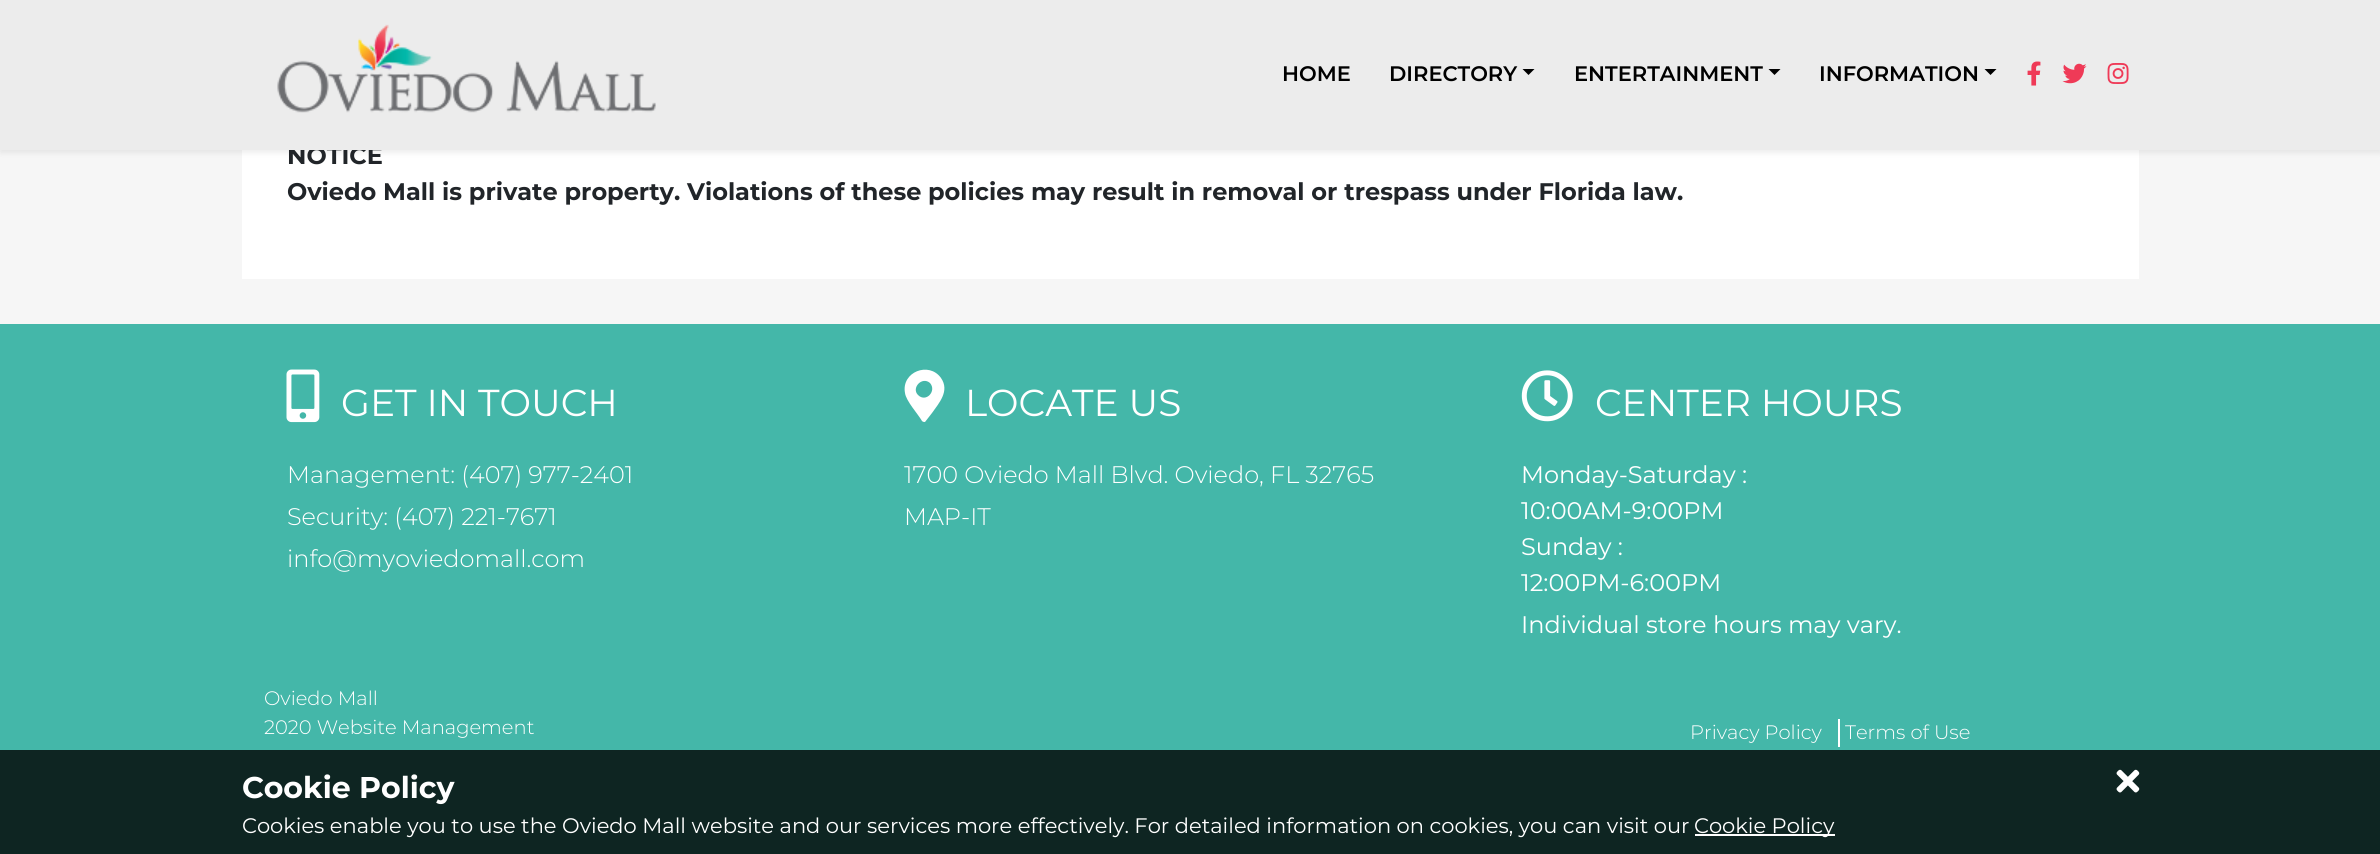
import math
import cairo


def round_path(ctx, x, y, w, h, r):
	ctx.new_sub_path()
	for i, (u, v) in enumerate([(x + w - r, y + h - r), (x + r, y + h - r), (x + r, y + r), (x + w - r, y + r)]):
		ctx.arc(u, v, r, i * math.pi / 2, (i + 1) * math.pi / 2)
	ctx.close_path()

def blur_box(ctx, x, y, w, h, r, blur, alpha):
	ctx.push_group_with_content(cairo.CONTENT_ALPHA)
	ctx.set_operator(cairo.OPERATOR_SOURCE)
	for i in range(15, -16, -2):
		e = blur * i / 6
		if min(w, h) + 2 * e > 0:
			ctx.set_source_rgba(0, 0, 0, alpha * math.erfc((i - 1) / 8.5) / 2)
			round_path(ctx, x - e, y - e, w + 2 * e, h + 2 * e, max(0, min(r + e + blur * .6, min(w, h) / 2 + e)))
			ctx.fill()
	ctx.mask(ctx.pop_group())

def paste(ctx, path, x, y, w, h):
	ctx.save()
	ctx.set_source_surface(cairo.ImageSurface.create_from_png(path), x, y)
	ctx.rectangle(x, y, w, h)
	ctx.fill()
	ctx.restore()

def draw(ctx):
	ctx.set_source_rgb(0.961, 0.961, 0.961)
	ctx.paint()
	ctx.set_source_rgb(1, 1, 1)
	ctx.rectangle(242, 150, 1897, 129)
	ctx.fill()
	ctx.set_source_rgb(0, 0, 0)
	blur_box(ctx, 0, 3, 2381, 150, 0, 3, 0.07)
	ctx.select_font_face('Montserrat', cairo.FONT_SLANT_NORMAL, cairo.FONT_WEIGHT_BOLD)
	ctx.set_font_size(24)
	ctx.set_source_rgb(0.129, 0.145, 0.161)
	ctx.move_to(287, 164)
	ctx.show_text('NOTICE')
	ctx.set_source_rgb(0.925, 0.925, 0.925)
	ctx.rectangle(0, 0, 2380, 150)
	ctx.fill()
	paste(ctx, 'media/1.png', 277, 24, 379, 89)
	ctx.select_font_face('Montserrat SemiBold')
	ctx.set_font_size(21)
	ctx.set_source_rgb(0, 0, 0)
	ctx.move_to(1282, 81)
	ctx.show_text('HOME')
	ctx.move_to(1389, 81)
	ctx.show_text('DIRECTORY')
	ctx.new_path()
	ctx.move_to(1522.5, 69)
	ctx.line_to(1534.5, 69)
	ctx.line_to(1528.5, 75)
	ctx.close_path()
	ctx.fill()
	ctx.move_to(1574, 81)
	ctx.show_text('ENTERTAINMENT')
	ctx.new_path()
	ctx.move_to(1768.5, 69)
	ctx.line_to(1780.5, 69)
	ctx.line_to(1774.5, 75)
	ctx.close_path()
	ctx.fill()
	ctx.move_to(1819, 81)
	ctx.show_text('INFORMATION')
	ctx.new_path()
	ctx.move_to(1984.5, 69)
	ctx.line_to(1996.5, 69)
	ctx.line_to(1990.5, 75)
	ctx.close_path()
	ctx.fill()
	paste(ctx, 'media/2.png', 2027, 61, 14, 25)
	paste(ctx, 'media/3.png', 2062, 63, 25, 21)
	paste(ctx, 'media/4.png', 2107, 63, 22, 21)
	ctx.select_font_face('Montserrat', cairo.FONT_SLANT_NORMAL, cairo.FONT_WEIGHT_BOLD)
	ctx.set_font_size(24)
	ctx.set_source_rgb(0.129, 0.145, 0.161)
	ctx.move_to(287, 200)
	ctx.show_text('Oviedo Mall is private property. Violations of these policies may result in removal or trespass under Florida law.')
	ctx.set_source_rgb(0.267, 0.718, 0.663)
	ctx.rectangle(0, 324, 2380, 426)
	ctx.fill()
	paste(ctx, 'media/5.png', 286, 369, 34, 54)
	ctx.select_font_face('Montserrat')
	ctx.set_font_size(37.5)
	ctx.set_source_rgb(1, 1, 1)
	ctx.move_to(341, 416)
	ctx.show_text('GET IN TOUCH')
	ctx.select_font_face('Montserrat Light')
	ctx.set_font_size(24)
	for x, y, s in [
		(287, 483, 'Management: (407) 977-2401'),
		(287, 525, 'Security: (407) 221-7671'),
		(287, 567, 'info@myoviedomall.com'),
	]:
		ctx.move_to(x, y)
		ctx.show_text(s)
	ctx.new_path()
	ctx.move_to(922, 421)
	ctx.curve_to(918, 414, 906, 401, 905, 393)
	ctx.curve_to(901, 372, 929, 361, 941, 378)
	ctx.curve_to(950, 391, 939, 403, 932, 413)
	ctx.line_to(925, 422)
	ctx.curve_to(924, 422, 923, 422, 922, 421)
	ctx.close_path()
	ctx.move_to(918, 395)
	ctx.curve_to(926, 403, 937, 391, 930, 383)
	ctx.curve_to(922, 376, 911, 388, 918, 395)
	ctx.close_path()
	ctx.fill()
	ctx.select_font_face('Montserrat')
	ctx.set_font_size(37.5)
	ctx.move_to(965, 416)
	ctx.show_text('LOCATE US')
	ctx.select_font_face('Montserrat Light')
	ctx.set_font_size(24)
	ctx.move_to(904, 483)
	ctx.show_text('1700 Oviedo Mall Blvd. Oviedo, FL 32765')
	ctx.move_to(904, 525)
	ctx.show_text('MAP-IT')
	paste(ctx, 'media/6.png', 1521, 370, 52, 52)
	ctx.select_font_face('Montserrat')
	ctx.set_font_size(37.5)
	ctx.move_to(1595, 416)
	ctx.show_text('CENTER HOURS')
	ctx.set_font_size(24)
	for x, y, s in [
		(1521, 483, 'Monday-Saturday :'),
		(1521, 519, '10:00AM-9:00PM'),
		(1521, 555, 'Sunday :'),
		(1521, 591, '12:00PM-6:00PM'),
		(1521, 633, 'Individual store hours may vary.'),
	]:
		ctx.move_to(x, y)
		ctx.show_text(s)
	ctx.select_font_face('Montserrat Light')
	ctx.set_font_size(19.5)
	ctx.move_to(264, 705)
	ctx.show_text('Oviedo Mall')
	ctx.move_to(264, 734)
	ctx.show_text('2020 Website Management')
	ctx.rectangle(1838, 719, 2, 28)
	ctx.fill()
	ctx.move_to(1690, 739)
	ctx.show_text('Privacy Policy')
	ctx.move_to(1845, 739)
	ctx.show_text('Terms of Use')
	ctx.set_source_rgb(0.055, 0.145, 0.133)
	ctx.rectangle(0, 750, 2380, 104)
	ctx.fill()
	ctx.select_font_face('Montserrat', cairo.FONT_SLANT_NORMAL, cairo.FONT_WEIGHT_BOLD)
	ctx.set_font_size(30)
	ctx.set_source_rgb(1, 1, 1)
	ctx.move_to(242, 798)
	ctx.show_text('Cookie Policy')
	paste(ctx, 'media/7.png', 2116, 769, 24, 24)
	ctx.select_font_face('Montserrat')
	ctx.set_font_size(21)
	ctx.move_to(242, 833)
	ctx.show_text('Cookies enable you to use the Oviedo Mall website and our services more effectively. For detailed information on cookies, you can visit our')
	ctx.rectangle(1695, 834, 140, 2)
	ctx.fill()
	ctx.move_to(1694, 833)
	ctx.show_text('Cookie Policy')


surface = cairo.ImageSurface(cairo.FORMAT_RGB24, 2380, 854)
ctx = cairo.Context(surface)
options = cairo.FontOptions()
options.set_hint_metrics(cairo.HINT_METRICS_OFF)
options.set_hint_style(cairo.HINT_STYLE_NONE)
ctx.set_font_options(options)
ctx.set_miter_limit(4)
draw(ctx)
surface.write_to_png('image.png')
